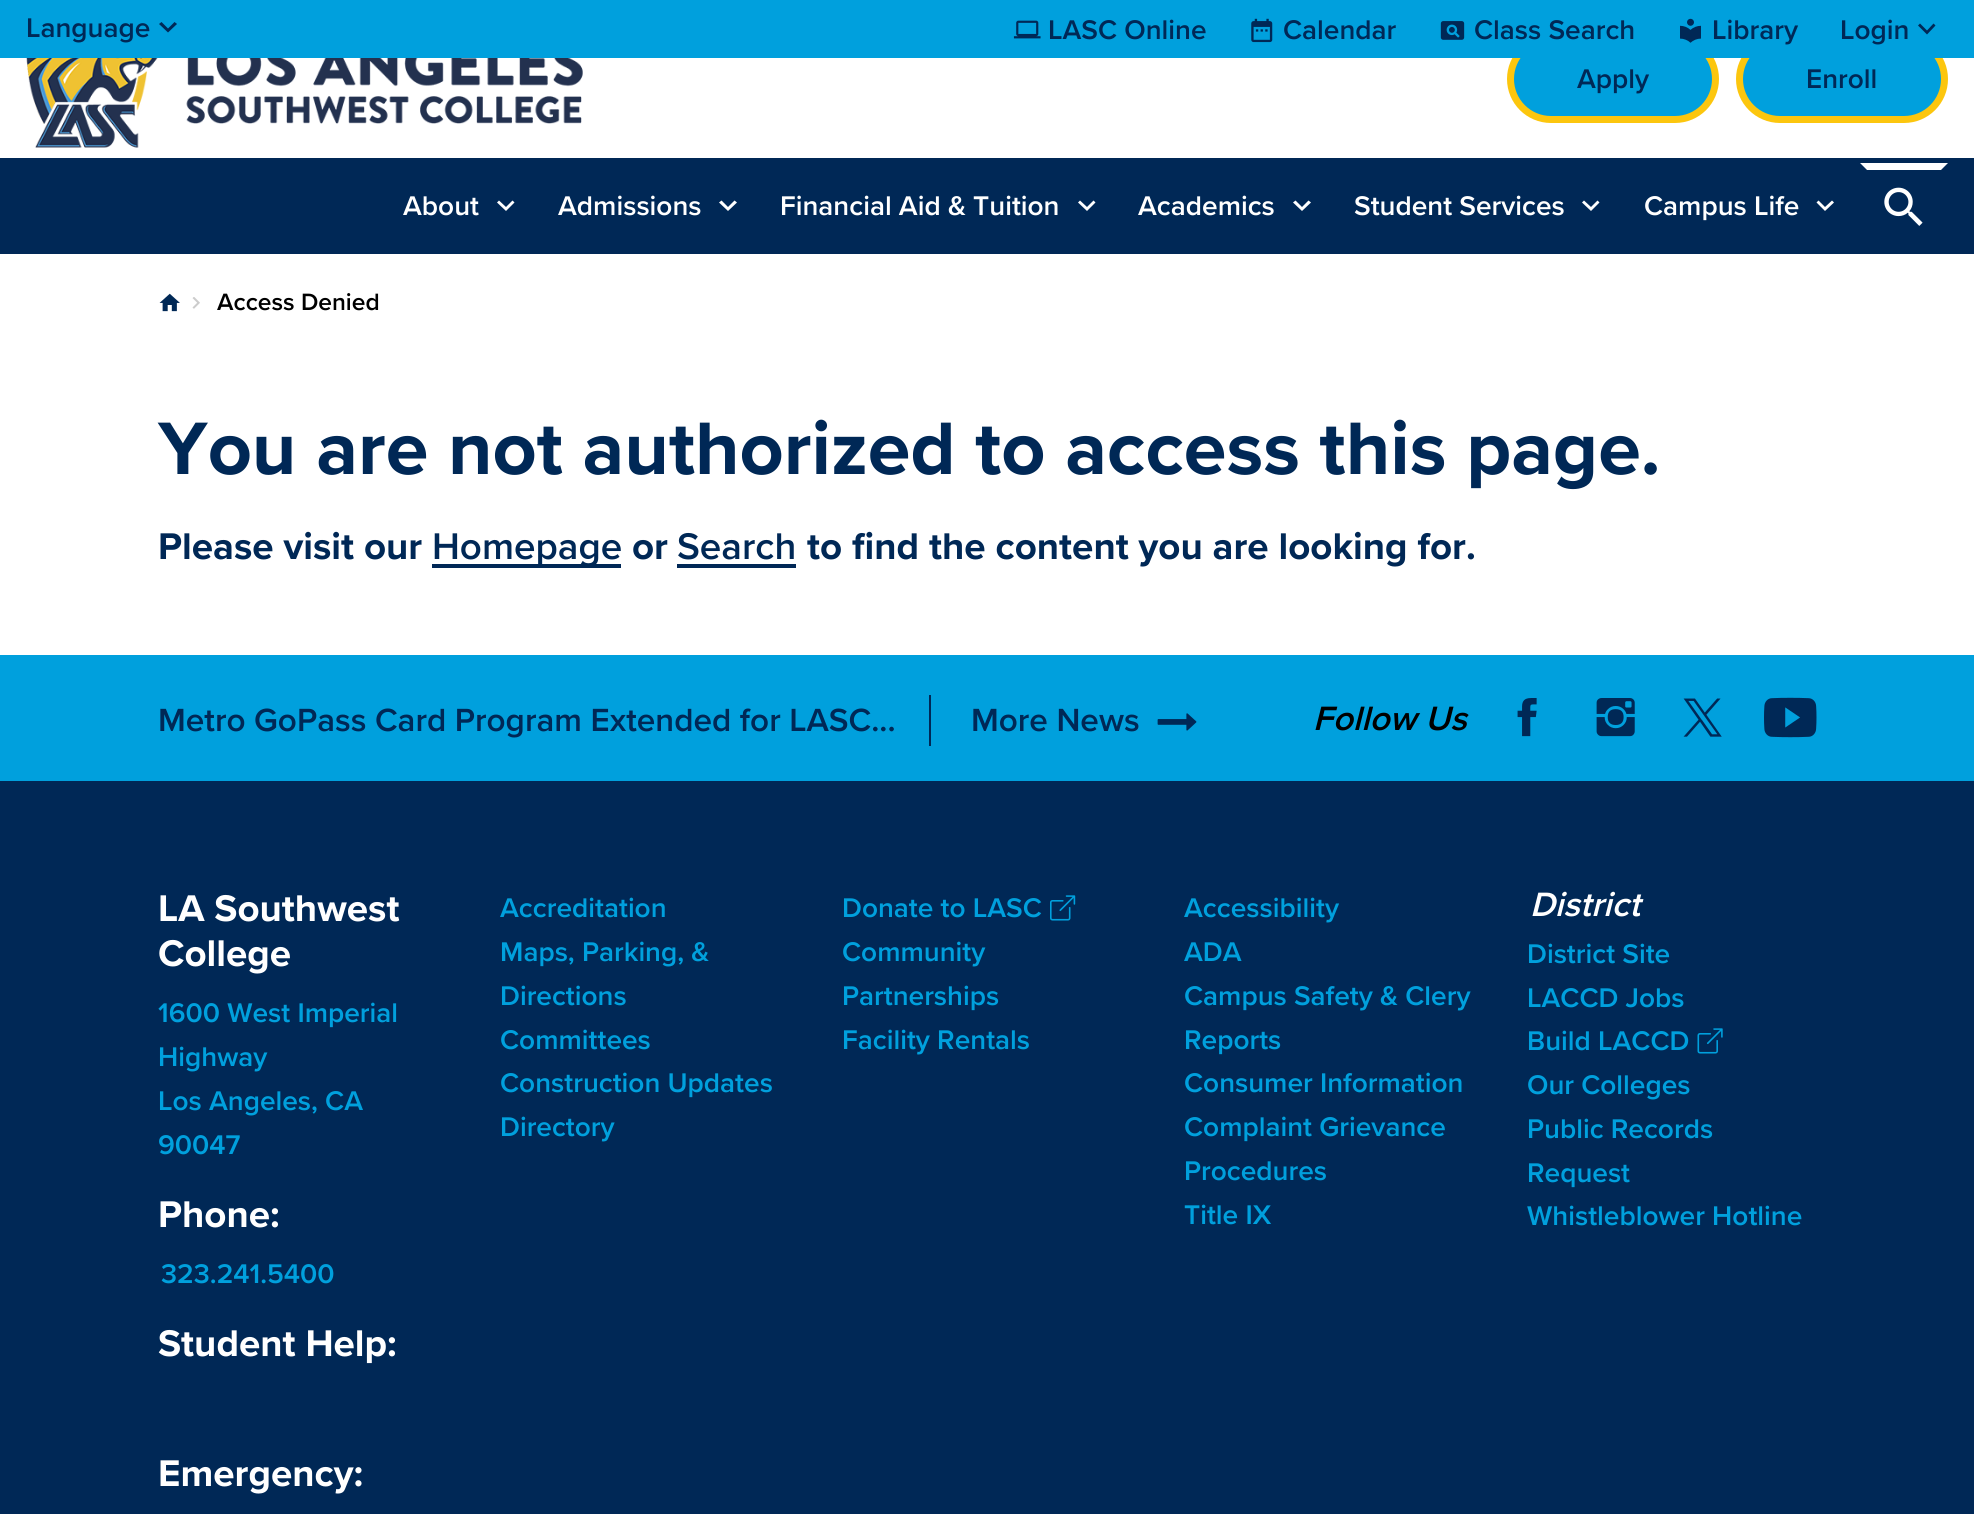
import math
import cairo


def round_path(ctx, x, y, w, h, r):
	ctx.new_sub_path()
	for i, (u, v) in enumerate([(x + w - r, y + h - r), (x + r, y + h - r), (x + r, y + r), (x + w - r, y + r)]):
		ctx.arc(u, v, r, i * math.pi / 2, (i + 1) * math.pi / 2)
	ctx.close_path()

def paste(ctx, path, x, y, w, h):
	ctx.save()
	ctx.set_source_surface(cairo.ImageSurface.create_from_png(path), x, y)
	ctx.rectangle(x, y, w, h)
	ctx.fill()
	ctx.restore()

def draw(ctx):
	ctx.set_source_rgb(1, 1, 1)
	ctx.paint()
	ctx.set_source_rgb(0, 0.627, 0.867)
	round_path(ctx, 1510.5, 38.5, 205, 81, 40.5)
	ctx.fill_preserve()
	ctx.set_source_rgb(0.988, 0.776, 0.055)
	ctx.set_line_width(7)
	ctx.stroke()
	ctx.set_source_rgb(0, 0.627, 0.867)
	round_path(ctx, 1739.5, 38.5, 205, 81, 40.5)
	ctx.fill_preserve()
	ctx.set_source_rgb(0.988, 0.776, 0.055)
	ctx.stroke()
	ctx.set_source_rgb(0, 0.627, 0.867)
	ctx.rectangle(0, 0, 1974, 58)
	ctx.fill()
	ctx.select_font_face('Proxima Nova SemiBold')
	ctx.set_font_size(28)
	ctx.set_source_rgb(0, 0.157, 0.337)
	ctx.move_to(26, 37)
	ctx.show_text('Language')
	ctx.new_path()
	ctx.move_to(161.5, 22)
	ctx.line_to(168, 28.5)
	ctx.line_to(174.5, 22)
	ctx.line_to(177, 24)
	ctx.line_to(168, 32.5)
	ctx.line_to(159, 24)
	ctx.close_path()
	ctx.fill()
	paste(ctx, 'media/1.png', 1013, 20, 28, 19)
	ctx.move_to(1048, 39)
	ctx.show_text('LASC Online')
	paste(ctx, 'media/2.png', 1251, 18, 22, 25)
	ctx.move_to(1283, 39)
	ctx.show_text('Calendar')
	paste(ctx, 'media/3.png', 1440, 21, 25, 19)
	ctx.move_to(1474, 39)
	ctx.show_text('Class Search')
	paste(ctx, 'media/4.png', 1680, 18, 21, 25)
	ctx.move_to(1712, 39)
	ctx.show_text('Library')
	ctx.move_to(1840, 39)
	ctx.show_text('Login')
	ctx.new_path()
	ctx.move_to(1920, 23.5)
	ctx.line_to(1927, 30.5)
	ctx.line_to(1933.5, 23.5)
	ctx.line_to(1935.5, 25.5)
	ctx.line_to(1927, 34.5)
	ctx.line_to(1918, 25.5)
	ctx.close_path()
	ctx.fill()
	paste(ctx, 'media/5.png', 26, 58, 557, 90)
	ctx.move_to(1577, 88)
	ctx.show_text('Apply')
	ctx.move_to(1806, 88)
	ctx.show_text('Enroll')
	ctx.rectangle(0, 158, 1974, 96)
	ctx.fill()
	ctx.set_source_rgb(1, 1, 1)
	ctx.move_to(403, 215)
	ctx.show_text('About')
	ctx.new_path()
	ctx.move_to(499, 200.5)
	ctx.line_to(506, 207)
	ctx.line_to(512.5, 200.5)
	ctx.line_to(514.5, 202.5)
	ctx.line_to(506, 211)
	ctx.line_to(497, 202.5)
	ctx.close_path()
	ctx.fill()
	ctx.move_to(558, 215)
	ctx.show_text('Admissions')
	ctx.new_path()
	ctx.move_to(721.5, 200.5)
	ctx.line_to(728, 207)
	ctx.line_to(734.5, 200.5)
	ctx.line_to(737, 202.5)
	ctx.line_to(728, 211)
	ctx.line_to(719, 202.5)
	ctx.close_path()
	ctx.fill()
	ctx.move_to(780, 215)
	ctx.show_text('Financial Aid & Tuition')
	ctx.new_path()
	ctx.move_to(1080, 200.5)
	ctx.line_to(1087, 207)
	ctx.line_to(1093.5, 200.5)
	ctx.line_to(1095.5, 202.5)
	ctx.line_to(1087, 211)
	ctx.line_to(1078, 202.5)
	ctx.close_path()
	ctx.fill()
	ctx.move_to(1138, 215)
	ctx.show_text('Academics')
	ctx.new_path()
	ctx.move_to(1295.5, 200.5)
	ctx.line_to(1302, 207)
	ctx.line_to(1308.5, 200.5)
	ctx.line_to(1311, 202.5)
	ctx.line_to(1302, 211)
	ctx.line_to(1293, 202.5)
	ctx.close_path()
	ctx.fill()
	ctx.move_to(1354, 215)
	ctx.show_text('Student Services')
	ctx.new_path()
	ctx.move_to(1584, 200.5)
	ctx.line_to(1591, 207)
	ctx.line_to(1597.5, 200.5)
	ctx.line_to(1599.5, 202.5)
	ctx.line_to(1591, 211)
	ctx.line_to(1582, 202.5)
	ctx.close_path()
	ctx.fill()
	ctx.move_to(1644, 215)
	ctx.show_text('Campus Life')
	ctx.new_path()
	ctx.move_to(1818.5, 200.5)
	ctx.line_to(1825, 207)
	ctx.line_to(1832, 200.5)
	ctx.line_to(1834, 202.5)
	ctx.line_to(1825, 211)
	ctx.line_to(1816.5, 202.5)
	ctx.close_path()
	ctx.fill()
	paste(ctx, 'media/6.png', 1884, 187, 39, 39)
	ctx.new_path()
	ctx.move_to(1860, 163)
	ctx.line_to(1948, 163)
	ctx.line_to(1941, 170)
	ctx.line_to(1867, 170)
	ctx.close_path()
	ctx.fill()
	paste(ctx, 'media/7.png', 159, 293, 21, 19)
	paste(ctx, 'media/8.png', 192, 297, 8, 12)
	ctx.set_font_size(24.5)
	ctx.set_source_rgb(0, 0, 0)
	ctx.move_to(217, 310)
	ctx.show_text('Access Denied')
	ctx.select_font_face('Proxima Nova', cairo.FONT_SLANT_NORMAL, cairo.FONT_WEIGHT_BOLD)
	ctx.set_font_size(77)
	ctx.set_source_rgb(0, 0.157, 0.337)
	ctx.move_to(158, 474)
	ctx.show_text('You are not authorized to access this page.')
	ctx.set_font_size(38.5)
	ctx.move_to(158, 559)
	ctx.show_text('Please visit our')
	ctx.rectangle(432, 564, 189, 4)
	ctx.fill()
	ctx.select_font_face('Proxima Nova SemiBold')
	ctx.move_to(432, 559)
	ctx.show_text('Homepage')
	ctx.select_font_face('Proxima Nova', cairo.FONT_SLANT_NORMAL, cairo.FONT_WEIGHT_BOLD)
	ctx.move_to(632, 559)
	ctx.show_text('or')
	ctx.select_font_face('Proxima Nova SemiBold')
	ctx.move_to(677, 559)
	ctx.show_text('Search')
	ctx.rectangle(677, 564, 119, 4)
	ctx.fill()
	ctx.select_font_face('Proxima Nova', cairo.FONT_SLANT_NORMAL, cairo.FONT_WEIGHT_BOLD)
	ctx.move_to(807, 559)
	ctx.show_text('to find the content you are looking for.')
	ctx.set_source_rgb(0, 0.627, 0.867)
	ctx.rectangle(0, 655, 1974, 126)
	ctx.fill()
	ctx.select_font_face('Proxima Nova SemiBold')
	ctx.set_font_size(33.25)
	ctx.set_source_rgb(0, 0.157, 0.337)
	ctx.move_to(158, 731)
	ctx.show_text('Metro GoPass Card Program Extended for LASC...')
	ctx.rectangle(929, 695, 2, 51)
	ctx.fill()
	ctx.move_to(971, 731)
	ctx.show_text('More News')
	paste(ctx, 'media/9.png', 1157, 713, 40, 18)
	ctx.select_font_face('Proxima Nova SemiBold', cairo.FONT_SLANT_ITALIC)
	ctx.set_font_size(35)
	ctx.set_source_rgb(0, 0, 0)
	ctx.move_to(1313, 730)
	ctx.show_text('Follow Us')
	paste(ctx, 'media/10.png', 1517, 698, 20, 39)
	paste(ctx, 'media/11.png', 1596, 698, 39, 39)
	paste(ctx, 'media/12.png', 1683, 698, 39, 39)
	paste(ctx, 'media/13.png', 1764, 697, 53, 41)
	ctx.set_source_rgb(0, 0.157, 0.337)
	ctx.rectangle(0, 781, 1974, 733)
	ctx.fill()
	ctx.select_font_face('Proxima Nova', cairo.FONT_SLANT_NORMAL, cairo.FONT_WEIGHT_BOLD)
	ctx.set_font_size(38.5)
	ctx.set_source_rgb(1, 1, 1)
	ctx.move_to(158, 921)
	ctx.show_text('LA Southwest')
	ctx.move_to(158, 966)
	ctx.show_text('College')
	ctx.select_font_face('Proxima Nova SemiBold')
	ctx.set_font_size(28)
	ctx.set_source_rgb(0, 0.627, 0.867)
	for x, y, s in [
		(158, 1022, '1600 West Imperial'),
		(158, 1066, 'Highway'),
		(158, 1110, 'Los Angeles, CA'),
		(158, 1154, '90047'),
	]:
		ctx.move_to(x, y)
		ctx.show_text(s)
	ctx.select_font_face('Proxima Nova', cairo.FONT_SLANT_NORMAL, cairo.FONT_WEIGHT_BOLD)
	ctx.set_font_size(38.5)
	ctx.set_source_rgb(1, 1, 1)
	ctx.move_to(158, 1227)
	ctx.show_text('Phone:')
	ctx.select_font_face('Proxima Nova SemiBold')
	ctx.set_font_size(28)
	ctx.set_source_rgb(0, 0.627, 0.867)
	ctx.move_to(161, 1283)
	ctx.show_text('323.241.5400')
	ctx.select_font_face('Proxima Nova', cairo.FONT_SLANT_NORMAL, cairo.FONT_WEIGHT_BOLD)
	ctx.set_font_size(38.5)
	ctx.set_source_rgb(1, 1, 1)
	ctx.move_to(158, 1356)
	ctx.show_text('Student Help:')
	ctx.move_to(158, 1486)
	ctx.show_text('Emergency:')
	ctx.select_font_face('Proxima Nova SemiBold')
	ctx.set_font_size(28)
	ctx.set_source_rgb(0, 0.627, 0.867)
	for x, y, s in [
		(500, 917, 'Accreditation'),
		(500, 961, 'Maps, Parking, &'),
		(500, 1005, 'Directions'),
		(500, 1049, 'Committees'),
		(500, 1092, 'Construction Updates'),
		(500, 1136, 'Directory'),
		(842, 917, 'Donate to LASC'),
	]:
		ctx.move_to(x, y)
		ctx.show_text(s)
	paste(ctx, 'media/14.png', 1050, 895, 26, 26)
	for x, y, s in [
		(842, 961, 'Community'),
		(842, 1005, 'Partnerships'),
		(842, 1049, 'Facility Rentals'),
		(1184, 917, 'Accessibility'),
		(1184, 961, 'ADA'),
		(1184, 1005, 'Campus Safety & Clery'),
		(1184, 1049, 'Reports'),
		(1184, 1092, 'Consumer Information'),
		(1184, 1136, 'Complaint Grievance'),
		(1184, 1180, 'Procedures'),
		(1184, 1224, 'Title IX'),
	]:
		ctx.move_to(x, y)
		ctx.show_text(s)
	ctx.select_font_face('Proxima Nova SemiBold', cairo.FONT_SLANT_ITALIC)
	ctx.set_font_size(35)
	ctx.set_source_rgb(1, 1, 1)
	ctx.move_to(1530, 916)
	ctx.show_text('District')
	ctx.select_font_face('Proxima Nova SemiBold')
	ctx.set_font_size(28)
	ctx.set_source_rgb(0, 0.627, 0.867)
	for x, y, s in [
		(1527, 963, 'District Site'),
		(1527, 1007, 'LACCD Jobs'),
		(1527, 1050, 'Build LACCD'),
	]:
		ctx.move_to(x, y)
		ctx.show_text(s)
	paste(ctx, 'media/15.png', 1697, 1028, 26, 26)
	for x, y, s in [
		(1527, 1094, 'Our Colleges'),
		(1527, 1138, 'Public Records'),
		(1527, 1182, 'Request'),
		(1527, 1225, 'Whistleblower Hotline'),
	]:
		ctx.move_to(x, y)
		ctx.show_text(s)


surface = cairo.ImageSurface(cairo.FORMAT_RGB24, 1974, 1514)
ctx = cairo.Context(surface)
options = cairo.FontOptions()
options.set_hint_metrics(cairo.HINT_METRICS_OFF)
options.set_hint_style(cairo.HINT_STYLE_NONE)
ctx.set_font_options(options)
ctx.set_miter_limit(4)
draw(ctx)
surface.write_to_png('image.png')
